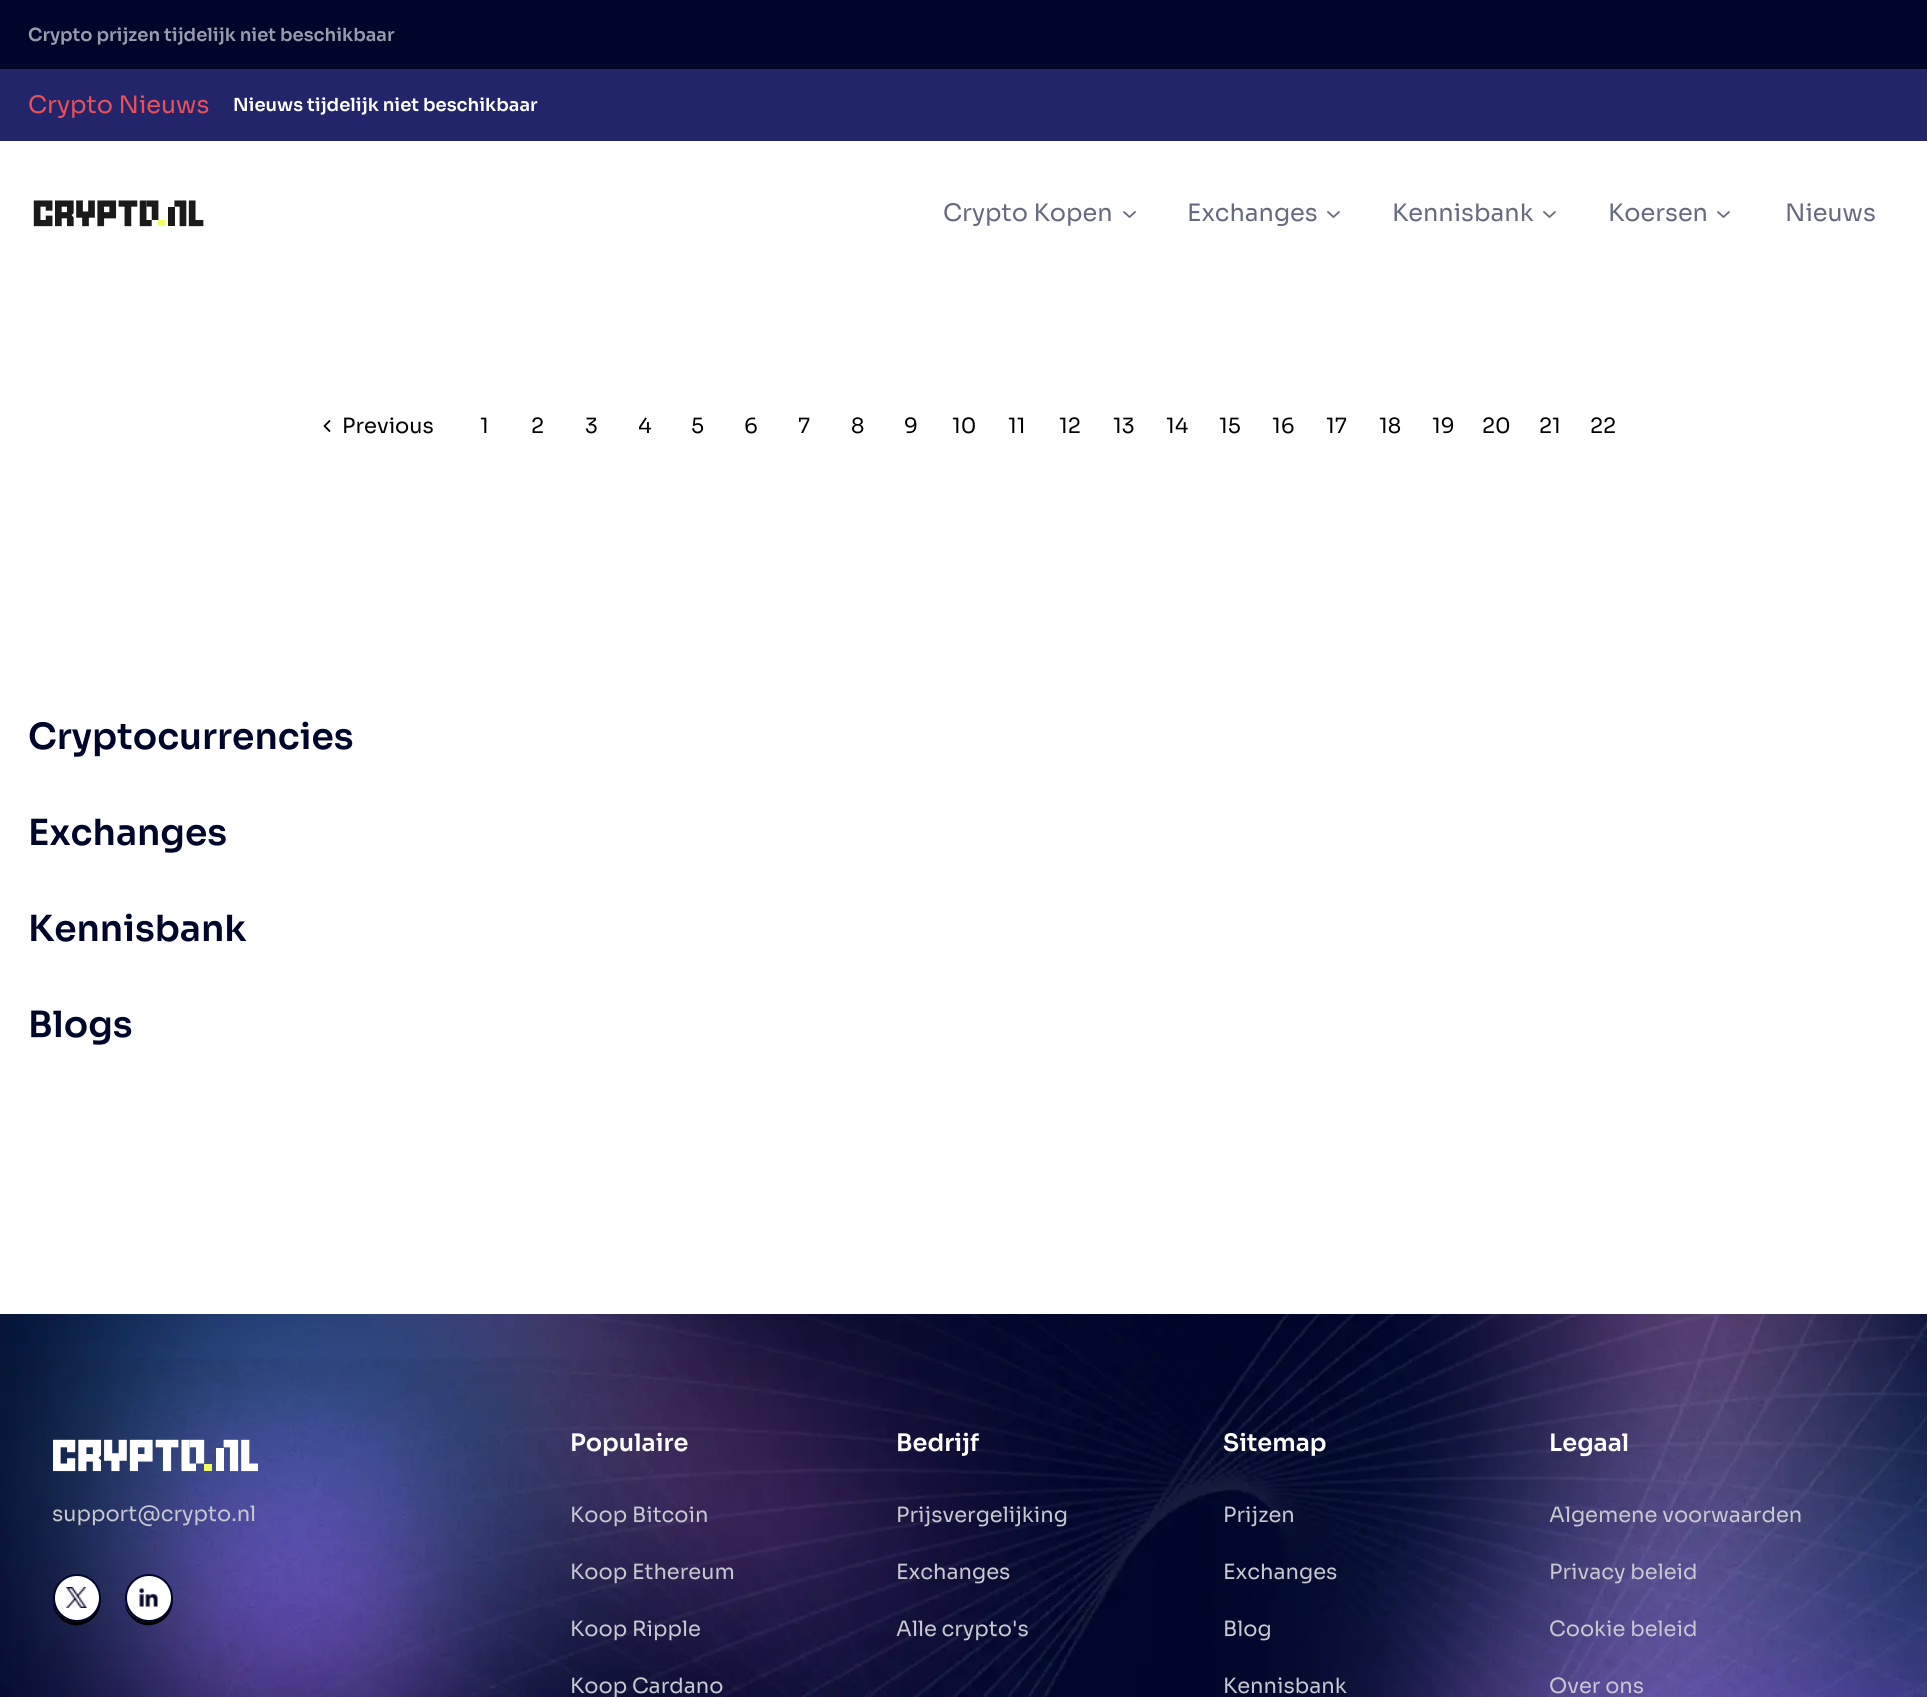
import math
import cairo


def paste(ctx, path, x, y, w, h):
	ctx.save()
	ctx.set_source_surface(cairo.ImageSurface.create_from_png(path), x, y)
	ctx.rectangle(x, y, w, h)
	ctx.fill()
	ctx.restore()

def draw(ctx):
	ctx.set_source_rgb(1, 1, 1)
	ctx.paint()
	ctx.set_source_rgb(0, 0.024, 0.165)
	ctx.rectangle(0, 0, 1927, 69)
	ctx.fill()
	ctx.select_font_face('Sora SemiBold')
	ctx.set_font_size(18)
	ctx.set_source_rgb(0.6, 0.608, 0.667)
	ctx.move_to(28, 41)
	ctx.show_text('Crypto prijzen tijdelijk niet beschikbaar')
	ctx.set_source_rgb(0.133, 0.145, 0.416)
	ctx.rectangle(0, 69, 1927, 72)
	ctx.fill()
	ctx.select_font_face('Sora')
	ctx.set_font_size(24)
	ctx.set_source_rgb(0.918, 0.314, 0.337)
	ctx.move_to(28, 113)
	ctx.show_text('Crypto Nieuws')
	ctx.select_font_face('Sora SemiBold')
	ctx.set_font_size(18)
	ctx.set_source_rgb(1, 1, 1)
	ctx.move_to(233, 111)
	ctx.show_text('Nieuws tijdelijk niet beschikbaar')
	paste(ctx, 'media/1.png', 33, 200, 171, 27)
	ctx.select_font_face('Sora')
	ctx.set_font_size(24)
	ctx.set_source_rgb(0.4, 0.416, 0.498)
	ctx.move_to(943, 221)
	ctx.show_text('Crypto Kopen')
	ctx.new_path()
	ctx.move_to(1124, 212)
	ctx.line_to(1129.5, 217)
	ctx.line_to(1135, 212)
	ctx.set_line_width(1.8)
	ctx.set_line_cap(cairo.LINE_CAP_ROUND)
	ctx.set_line_join(cairo.LINE_JOIN_ROUND)
	ctx.stroke()
	ctx.move_to(1187, 221)
	ctx.show_text('Exchanges')
	ctx.new_path()
	ctx.move_to(1328, 212)
	ctx.line_to(1333.5, 217)
	ctx.line_to(1339, 212)
	ctx.stroke()
	ctx.move_to(1392, 221)
	ctx.show_text('Kennisbank')
	ctx.new_path()
	ctx.move_to(1544, 212)
	ctx.line_to(1549.5, 217)
	ctx.line_to(1555, 212)
	ctx.stroke()
	ctx.move_to(1608, 221)
	ctx.show_text('Koersen')
	ctx.new_path()
	ctx.move_to(1718, 212)
	ctx.line_to(1723.5, 217)
	ctx.line_to(1729, 212)
	ctx.stroke()
	ctx.move_to(1785, 221)
	ctx.show_text('Nieuws')
	ctx.new_path()
	ctx.move_to(329.5, 431)
	ctx.line_to(324.5, 426)
	ctx.line_to(329.5, 421)
	ctx.set_source_rgb(0, 0, 0)
	ctx.stroke()
	ctx.set_font_size(21)
	for x, y, s in [
		(342, 433, 'Previous'),
		(480, 433, '1'),
		(531, 433, '2'),
		(585, 433, '3'),
		(638, 433, '4'),
		(691, 433, '5'),
		(744, 433, '6'),
		(798, 433, '7'),
		(851, 433, '8'),
		(904, 433, '9'),
		(952, 433, '10'),
		(1008, 433, '11'),
		(1059, 433, '12'),
		(1113, 433, '13'),
		(1166, 433, '14'),
		(1219, 433, '15'),
		(1272, 433, '16'),
		(1326, 433, '17'),
		(1379, 433, '18'),
		(1432, 433, '19'),
		(1482, 433, '20'),
		(1539, 433, '21'),
		(1590, 433, '22'),
	]:
		ctx.move_to(x, y)
		ctx.show_text(s)
	ctx.select_font_face('Sora SemiBold')
	ctx.set_font_size(36)
	ctx.set_source_rgb(0, 0.024, 0.165)
	for x, y, s in [
		(28, 749, 'Cryptocurrencies'),
		(28, 845, 'Exchanges'),
		(28, 941, 'Kennisbank'),
		(28, 1037, 'Blogs'),
	]:
		ctx.move_to(x, y)
		ctx.show_text(s)
	paste(ctx, 'media/2.png', 0, 1314, 1927, 383)
	paste(ctx, 'media/3.png', 53, 1439, 205, 33)
	ctx.select_font_face('Sora')
	ctx.set_font_size(21)
	ctx.set_source_rgb(0.78, 0.784, 0.816)
	ctx.move_to(52, 1521)
	ctx.show_text('support@crypto.nl')
	ctx.set_source_rgb(0, 0, 0)
	ctx.new_path()
	ctx.move_to(53, 1603)
	ctx.curve_to(53, 1609, 56, 1614, 61, 1619)
	ctx.curve_to(78, 1635, 105, 1618, 100, 1596)
	ctx.curve_to(102, 1625, 59, 1631, 53, 1603)
	ctx.close_path()
	ctx.fill()
	ctx.set_source_rgb(1, 1, 1)
	ctx.arc(77, 1598, 23, 0, 2 * math.pi)
	ctx.fill_preserve()
	ctx.set_source_rgb(0, 0.024, 0.165)
	ctx.set_line_width(2)
	ctx.set_line_cap(cairo.LINE_CAP_BUTT)
	ctx.set_line_join(cairo.LINE_JOIN_MITER)
	ctx.stroke()
	paste(ctx, 'media/4.png', 66, 1587, 21, 21)
	ctx.set_source_rgb(0, 0, 0)
	ctx.new_path()
	ctx.move_to(125, 1603)
	ctx.curve_to(125, 1609, 128, 1614, 133, 1619)
	ctx.curve_to(150, 1635, 177, 1618, 172, 1596)
	ctx.curve_to(174, 1625, 131, 1631, 125, 1603)
	ctx.close_path()
	ctx.fill()
	ctx.set_source_rgb(1, 1, 1)
	ctx.arc(149, 1598, 23, 0, 2 * math.pi)
	ctx.fill_preserve()
	ctx.set_source_rgb(0, 0.024, 0.165)
	ctx.stroke()
	paste(ctx, 'media/5.png', 139, 1588, 19, 19)
	ctx.select_font_face('Sora SemiBold')
	ctx.set_font_size(24)
	ctx.set_source_rgb(1, 1, 1)
	ctx.move_to(570, 1451)
	ctx.show_text('Populaire')
	ctx.select_font_face('Sora')
	ctx.set_font_size(21)
	ctx.set_source_rgb(0.78, 0.784, 0.816)
	for x, y, s in [
		(570, 1522, 'Koop Bitcoin'),
		(570, 1579, 'Koop Ethereum'),
		(570, 1636, 'Koop Ripple'),
		(570, 1693, 'Koop Cardano'),
	]:
		ctx.move_to(x, y)
		ctx.show_text(s)
	ctx.select_font_face('Sora SemiBold')
	ctx.set_font_size(24)
	ctx.set_source_rgb(1, 1, 1)
	ctx.move_to(896, 1451)
	ctx.show_text('Bedrijf')
	ctx.select_font_face('Sora')
	ctx.set_font_size(21)
	ctx.set_source_rgb(0.78, 0.784, 0.816)
	for x, y, s in [
		(896, 1522, 'Prijsvergelijking'),
		(896, 1579, 'Exchanges'),
		(896, 1636, 'Alle crypto\'s'),
	]:
		ctx.move_to(x, y)
		ctx.show_text(s)
	ctx.select_font_face('Sora SemiBold')
	ctx.set_font_size(24)
	ctx.set_source_rgb(1, 1, 1)
	ctx.move_to(1223, 1451)
	ctx.show_text('Sitemap')
	ctx.select_font_face('Sora')
	ctx.set_font_size(21)
	ctx.set_source_rgb(0.78, 0.784, 0.816)
	for x, y, s in [
		(1223, 1522, 'Prijzen'),
		(1223, 1579, 'Exchanges'),
		(1223, 1636, 'Blog'),
		(1223, 1693, 'Kennisbank'),
	]:
		ctx.move_to(x, y)
		ctx.show_text(s)
	ctx.select_font_face('Sora SemiBold')
	ctx.set_font_size(24)
	ctx.set_source_rgb(1, 1, 1)
	ctx.move_to(1549, 1451)
	ctx.show_text('Legaal')
	ctx.select_font_face('Sora')
	ctx.set_font_size(21)
	ctx.set_source_rgb(0.78, 0.784, 0.816)
	for x, y, s in [
		(1549, 1522, 'Algemene voorwaarden'),
		(1549, 1579, 'Privacy beleid'),
		(1549, 1636, 'Cookie beleid'),
		(1549, 1693, 'Over ons'),
	]:
		ctx.move_to(x, y)
		ctx.show_text(s)


surface = cairo.ImageSurface(cairo.FORMAT_RGB24, 1927, 1697)
ctx = cairo.Context(surface)
options = cairo.FontOptions()
options.set_hint_metrics(cairo.HINT_METRICS_OFF)
options.set_hint_style(cairo.HINT_STYLE_NONE)
ctx.set_font_options(options)
ctx.set_miter_limit(4)
draw(ctx)
surface.write_to_png('image.png')
